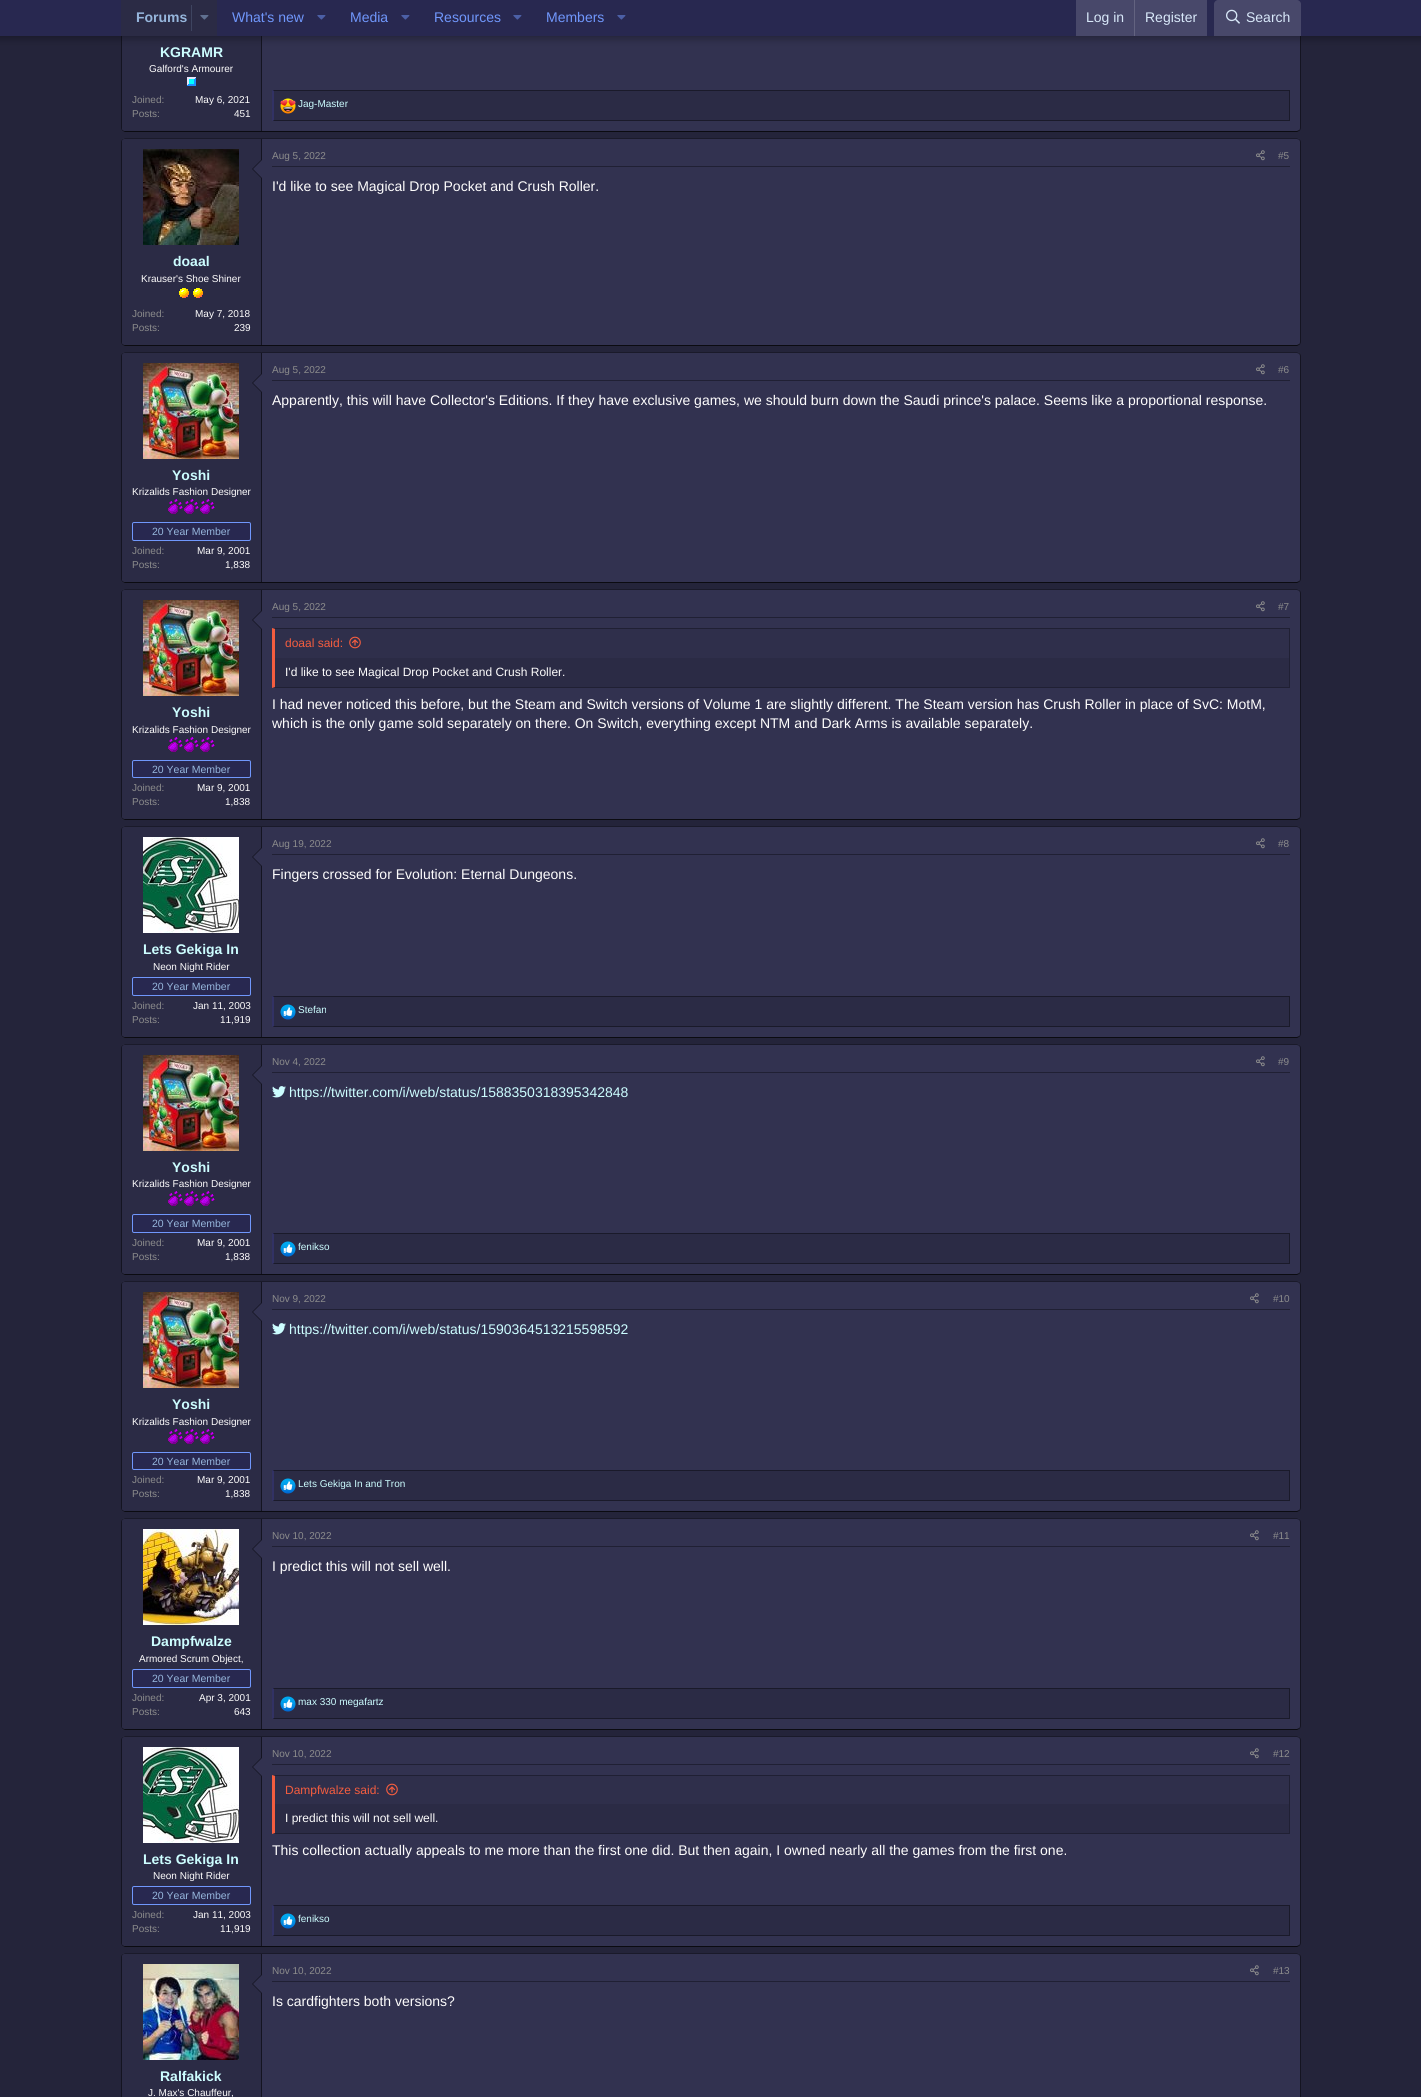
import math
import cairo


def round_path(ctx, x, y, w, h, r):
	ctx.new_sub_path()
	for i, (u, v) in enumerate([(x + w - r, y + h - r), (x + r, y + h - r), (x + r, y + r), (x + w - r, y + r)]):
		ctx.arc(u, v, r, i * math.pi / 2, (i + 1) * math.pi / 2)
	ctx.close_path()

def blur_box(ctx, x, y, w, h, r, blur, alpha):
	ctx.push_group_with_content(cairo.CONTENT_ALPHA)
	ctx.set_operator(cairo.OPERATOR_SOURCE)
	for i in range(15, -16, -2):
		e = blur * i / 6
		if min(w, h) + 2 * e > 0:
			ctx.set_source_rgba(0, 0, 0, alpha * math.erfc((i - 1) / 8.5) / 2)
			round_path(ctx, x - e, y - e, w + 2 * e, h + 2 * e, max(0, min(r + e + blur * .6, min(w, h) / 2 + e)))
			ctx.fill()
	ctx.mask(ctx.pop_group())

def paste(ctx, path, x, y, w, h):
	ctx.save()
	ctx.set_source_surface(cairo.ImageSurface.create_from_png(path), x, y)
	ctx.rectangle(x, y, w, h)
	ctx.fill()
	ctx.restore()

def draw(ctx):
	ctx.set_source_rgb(0.141, 0.141, 0.227)
	ctx.paint()
	ctx.set_source_rgb(0.196, 0.196, 0.314)
	round_path(ctx, 121, -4, 1180, 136, 4)
	ctx.fill()
	ctx.new_path()
	ctx.move_to(1299.5, -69.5)
	ctx.curve_to(1300, -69, 1300.5, -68, 1300.5, -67)
	ctx.line_to(1300.5, 128)
	ctx.curve_to(1300.5, 129, 1300, 130, 1299.5, 130.5)
	ctx.set_source_rgb(0.082, 0.082, 0.129)
	ctx.set_line_width(1)
	ctx.stroke()
	ctx.new_path()
	ctx.move_to(1299.5, 130.5)
	ctx.line_to(1297, 131.5)
	ctx.line_to(125, 131.5)
	ctx.line_to(122.5, 130.5)
	ctx.set_source_rgb(0.043, 0.043, 0.067)
	ctx.stroke()
	ctx.new_path()
	ctx.move_to(122.5, 130.5)
	ctx.curve_to(122, 130, 121.5, 129, 121.5, 128)
	ctx.line_to(121.5, -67)
	ctx.curve_to(121.5, -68, 122, -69, 122.5, -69.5)
	ctx.set_source_rgb(0.082, 0.082, 0.129)
	ctx.stroke()
	ctx.set_source_rgb(0.169, 0.169, 0.271)
	ctx.new_path()
	ctx.move_to(125, -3)
	ctx.line_to(262, -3)
	ctx.line_to(262, 131)
	ctx.line_to(125, 131)
	ctx.curve_to(123.5, 131, 122, 129.5, 122, 128)
	ctx.line_to(122, 0)
	ctx.curve_to(122, -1.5, 123.5, -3, 125, -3)
	ctx.close_path()
	ctx.fill()
	ctx.set_source_rgb(0.082, 0.082, 0.129)
	ctx.rectangle(261, 36, 1, 95)
	ctx.fill()
	ctx.set_source_rgb(0, 0, 0)
	blur_box(ctx, -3, -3, 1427, 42, 0, 4, 0.3)
	ctx.set_source_rgb(0.157, 0.157, 0.314)
	ctx.rectangle(0, 0, 1421, 36)
	ctx.fill()
	ctx.set_source_rgb(0.169, 0.169, 0.271)
	ctx.rectangle(121, 0, 96, 36)
	ctx.fill()
	ctx.select_font_face('Liberation Sans', cairo.FONT_SLANT_NORMAL, cairo.FONT_WEIGHT_BOLD)
	ctx.set_font_size(14)
	ctx.set_source_rgb(0.588, 0.714, 0.863)
	ctx.move_to(136, 22)
	ctx.show_text('Forums')
	ctx.set_source_rgb(0.243, 0.267, 0.376)
	ctx.rectangle(191, 5, 1, 26)
	ctx.fill()
	paste(ctx, 'media/1.png', 200, 15, 9, 5)
	ctx.select_font_face('Liberation Sans')
	ctx.set_source_rgb(0.439, 0.592, 0.988)
	ctx.move_to(232, 22)
	ctx.show_text('What\'s new')
	paste(ctx, 'media/2.png', 317, 15, 9, 5)
	ctx.move_to(350, 22)
	ctx.show_text('Media')
	paste(ctx, 'media/2.png', 401, 15, 9, 5)
	ctx.move_to(434, 22)
	ctx.show_text('Resources')
	paste(ctx, 'media/2.png', 513, 15, 9, 5)
	ctx.move_to(546, 22)
	ctx.show_text('Members')
	paste(ctx, 'media/2.png', 617, 15, 9, 5)
	ctx.set_source_rgb(0.282, 0.282, 0.416)
	ctx.rectangle(1076, 0, 131, 36)
	ctx.fill()
	ctx.set_source_rgb(0.847, 0.91, 0.973)
	ctx.move_to(1086, 22)
	ctx.show_text('Log in')
	ctx.set_source_rgb(0.388, 0.388, 0.502)
	ctx.rectangle(1134, 0, 1, 36)
	ctx.fill()
	ctx.set_source_rgb(0.847, 0.91, 0.973)
	ctx.move_to(1145, 22)
	ctx.show_text('Register')
	ctx.set_source_rgb(0.282, 0.282, 0.416)
	ctx.new_path()
	ctx.move_to(1218, 0)
	ctx.line_to(1297, 0)
	ctx.curve_to(1299, 0, 1301, 2, 1301, 4)
	ctx.line_to(1301, 36)
	ctx.line_to(1214, 36)
	ctx.line_to(1214, 4)
	ctx.curve_to(1214, 2, 1216, 0, 1218, 0)
	ctx.close_path()
	ctx.fill()
	paste(ctx, 'media/3.png', 1226, 9, 14, 15)
	ctx.set_source_rgb(0.847, 0.91, 0.973)
	ctx.move_to(1246, 22)
	ctx.show_text('Search')
	ctx.select_font_face('Liberation Sans', cairo.FONT_SLANT_NORMAL, cairo.FONT_WEIGHT_BOLD)
	ctx.set_source_rgb(0.8, 0.992, 1)
	ctx.move_to(160, 57)
	ctx.show_text('KGRAMR')
	ctx.select_font_face('Liberation Sans')
	ctx.set_font_size(10)
	ctx.set_source_rgb(0.996, 0.992, 0.992)
	ctx.move_to(149, 72)
	ctx.show_text('Galford\'s Armourer')
	paste(ctx, 'media/4.png', 187, 77, 9, 9)
	ctx.set_source_rgb(0.549, 0.549, 0.549)
	ctx.move_to(132, 103)
	ctx.show_text('Joined:')
	ctx.set_source_rgb(0.996, 0.992, 0.992)
	ctx.move_to(195, 103)
	ctx.show_text('May 6, 2021')
	ctx.set_source_rgb(0.549, 0.549, 0.549)
	ctx.move_to(132, 117)
	ctx.show_text('Posts:')
	ctx.set_source_rgb(0.996, 0.992, 0.992)
	ctx.move_to(234, 117)
	ctx.show_text('451')
	ctx.set_source_rgb(0.169, 0.169, 0.271)
	ctx.rectangle(274, 91, 1015, 29)
	ctx.fill()
	ctx.set_source_rgb(0.102, 0.102, 0.165)
	ctx.new_path()
	ctx.move_to(272, 90)
	ctx.line_to(1290, 90)
	ctx.line_to(1289, 91)
	ctx.line_to(274, 91)
	ctx.close_path()
	ctx.fill()
	ctx.rectangle(1289, 90, 1, 31)
	ctx.fill()
	ctx.new_path()
	ctx.move_to(1290, 121)
	ctx.line_to(272, 121)
	ctx.line_to(274, 120)
	ctx.line_to(1289, 120)
	ctx.close_path()
	ctx.fill()
	ctx.set_source_rgb(0.196, 0.196, 0.392)
	ctx.new_path()
	ctx.move_to(272, 121)
	ctx.line_to(272, 90)
	ctx.line_to(274, 91)
	ctx.line_to(274, 120)
	ctx.close_path()
	ctx.fill()
	paste(ctx, 'media/5.png', 280, 98, 16, 16)
	ctx.set_source_rgb(0.8, 0.992, 1)
	ctx.move_to(298, 107)
	ctx.show_text('Jag-Master')
	ctx.set_source_rgb(0.196, 0.196, 0.314)
	round_path(ctx, 121, 138, 1180, 208, 4)
	ctx.fill()
	ctx.new_path()
	ctx.move_to(122.5, 139.5)
	ctx.line_to(125, 138.5)
	ctx.line_to(1297, 138.5)
	ctx.line_to(1299.5, 139.5)
	ctx.set_source_rgb(0.102, 0.102, 0.165)
	ctx.stroke()
	ctx.new_path()
	ctx.move_to(1299.5, 139.5)
	ctx.curve_to(1300, 140, 1300.5, 141, 1300.5, 142)
	ctx.line_to(1300.5, 342)
	ctx.curve_to(1300.5, 343, 1300, 344, 1299.5, 344.5)
	ctx.set_source_rgb(0.082, 0.082, 0.129)
	ctx.stroke()
	ctx.new_path()
	ctx.move_to(1299.5, 344.5)
	ctx.line_to(1297, 345.5)
	ctx.line_to(125, 345.5)
	ctx.line_to(122.5, 344.5)
	ctx.set_source_rgb(0.043, 0.043, 0.067)
	ctx.stroke()
	ctx.new_path()
	ctx.move_to(122.5, 344.5)
	ctx.curve_to(122, 344, 121.5, 343, 121.5, 342)
	ctx.line_to(121.5, 142)
	ctx.curve_to(121.5, 141, 122, 140, 122.5, 139.5)
	ctx.set_source_rgb(0.082, 0.082, 0.129)
	ctx.stroke()
	ctx.set_source_rgb(0.125, 0.125, 0.204)
	ctx.rectangle(272, 166, 1018, 1)
	ctx.fill()
	ctx.set_source_rgb(0.549, 0.549, 0.549)
	ctx.move_to(272, 159)
	ctx.show_text('Aug 5, 2022')
	paste(ctx, 'media/6.png', 1256, 150, 9, 11)
	ctx.move_to(1278, 159)
	ctx.show_text('#5')
	ctx.set_font_size(14)
	ctx.set_source_rgb(0.996, 0.992, 0.992)
	ctx.move_to(272, 191)
	ctx.show_text('I\'d like to see Magical Drop Pocket and Crush Roller.')
	ctx.set_source_rgb(0.169, 0.169, 0.271)
	ctx.new_path()
	ctx.move_to(125, 139)
	ctx.line_to(262, 139)
	ctx.line_to(262, 345)
	ctx.line_to(125, 345)
	ctx.curve_to(123.5, 345, 122, 343.5, 122, 342)
	ctx.line_to(122, 142)
	ctx.curve_to(122, 140.5, 123.5, 139, 125, 139)
	ctx.close_path()
	ctx.fill()
	ctx.set_source_rgb(0.082, 0.082, 0.129)
	ctx.rectangle(261, 139, 1, 206)
	ctx.fill()
	paste(ctx, 'media/7.png', 143, 149, 96, 96)
	ctx.new_path()
	ctx.move_to(262, 159)
	ctx.line_to(262, 179)
	ctx.line_to(252, 169)
	ctx.close_path()
	ctx.fill()
	ctx.set_source_rgb(0.196, 0.196, 0.314)
	ctx.new_path()
	ctx.move_to(262, 160)
	ctx.line_to(262, 178)
	ctx.line_to(253, 169)
	ctx.close_path()
	ctx.fill()
	ctx.select_font_face('Liberation Sans', cairo.FONT_SLANT_NORMAL, cairo.FONT_WEIGHT_BOLD)
	ctx.set_source_rgb(0.8, 0.992, 1)
	ctx.move_to(173, 266)
	ctx.show_text('doaal')
	ctx.select_font_face('Liberation Sans')
	ctx.set_font_size(10)
	ctx.set_source_rgb(0.996, 0.992, 0.992)
	ctx.move_to(141, 282)
	ctx.show_text('Krauser\'s Shoe Shiner')
	paste(ctx, 'media/8.png', 179, 288, 10, 10)
	paste(ctx, 'media/8.png', 193, 288, 10, 10)
	ctx.set_source_rgb(0.549, 0.549, 0.549)
	ctx.move_to(132, 317)
	ctx.show_text('Joined:')
	ctx.set_source_rgb(0.996, 0.992, 0.992)
	ctx.move_to(195, 317)
	ctx.show_text('May 7, 2018')
	ctx.set_source_rgb(0.549, 0.549, 0.549)
	ctx.move_to(132, 331)
	ctx.show_text('Posts:')
	ctx.set_source_rgb(0.996, 0.992, 0.992)
	ctx.move_to(234, 331)
	ctx.show_text('239')
	ctx.set_source_rgb(0.196, 0.196, 0.314)
	round_path(ctx, 121, 352, 1180, 231, 4)
	ctx.fill()
	ctx.new_path()
	ctx.move_to(122.5, 353.5)
	ctx.line_to(125, 352.5)
	ctx.line_to(1297, 352.5)
	ctx.line_to(1299.5, 353.5)
	ctx.set_source_rgb(0.102, 0.102, 0.165)
	ctx.stroke()
	ctx.new_path()
	ctx.move_to(1299.5, 353.5)
	ctx.curve_to(1300, 354, 1300.5, 355, 1300.5, 356)
	ctx.line_to(1300.5, 579)
	ctx.curve_to(1300.5, 580, 1300, 581, 1299.5, 581.5)
	ctx.set_source_rgb(0.082, 0.082, 0.129)
	ctx.stroke()
	ctx.new_path()
	ctx.move_to(1299.5, 581.5)
	ctx.line_to(1297, 582.5)
	ctx.line_to(125, 582.5)
	ctx.line_to(122.5, 581.5)
	ctx.set_source_rgb(0.043, 0.043, 0.067)
	ctx.stroke()
	ctx.new_path()
	ctx.move_to(122.5, 581.5)
	ctx.curve_to(122, 581, 121.5, 580, 121.5, 579)
	ctx.line_to(121.5, 356)
	ctx.curve_to(121.5, 355, 122, 354, 122.5, 353.5)
	ctx.set_source_rgb(0.082, 0.082, 0.129)
	ctx.stroke()
	ctx.set_source_rgb(0.125, 0.125, 0.204)
	ctx.rectangle(272, 380, 1018, 1)
	ctx.fill()
	ctx.set_source_rgb(0.549, 0.549, 0.549)
	ctx.move_to(272, 373)
	ctx.show_text('Aug 5, 2022')
	paste(ctx, 'media/6.png', 1256, 364, 9, 11)
	ctx.move_to(1278, 373)
	ctx.show_text('#6')
	ctx.set_font_size(14)
	ctx.set_source_rgb(0.996, 0.992, 0.992)
	ctx.move_to(272, 405)
	ctx.show_text('Apparently, this will have Collector\'s Editions. If they have exclusive games, we should burn down the Saudi prince\'s palace. Seems like a proportional response.')
	ctx.set_source_rgb(0.169, 0.169, 0.271)
	ctx.new_path()
	ctx.move_to(125, 353)
	ctx.line_to(262, 353)
	ctx.line_to(262, 582)
	ctx.line_to(125, 582)
	ctx.curve_to(123.5, 582, 122, 580.5, 122, 579)
	ctx.line_to(122, 356)
	ctx.curve_to(122, 354.5, 123.5, 353, 125, 353)
	ctx.close_path()
	ctx.fill()
	ctx.set_source_rgb(0.082, 0.082, 0.129)
	ctx.rectangle(261, 353, 1, 229)
	ctx.fill()
	paste(ctx, 'media/9.png', 143, 363, 96, 96)
	ctx.new_path()
	ctx.move_to(262, 373)
	ctx.line_to(262, 393)
	ctx.line_to(252, 383)
	ctx.close_path()
	ctx.fill()
	ctx.set_source_rgb(0.196, 0.196, 0.314)
	ctx.new_path()
	ctx.move_to(262, 374)
	ctx.line_to(262, 392)
	ctx.line_to(253, 383)
	ctx.close_path()
	ctx.fill()
	ctx.select_font_face('Liberation Sans', cairo.FONT_SLANT_NORMAL, cairo.FONT_WEIGHT_BOLD)
	ctx.set_source_rgb(0.8, 0.992, 1)
	ctx.move_to(172, 480)
	ctx.show_text('Yoshi')
	ctx.select_font_face('Liberation Sans')
	ctx.set_font_size(10)
	ctx.set_source_rgb(0.996, 0.992, 0.992)
	ctx.move_to(132, 495)
	ctx.show_text('Krizalids Fashion Designer')
	paste(ctx, 'media/10.png', 168, 499, 15, 15)
	paste(ctx, 'media/10.png', 184, 499, 15, 15)
	paste(ctx, 'media/10.png', 200, 499, 15, 15)
	ctx.set_source_rgb(0.157, 0.157, 0.314)
	round_path(ctx, 132.5, 522.5, 118, 18, 1.5)
	ctx.fill_preserve()
	ctx.set_source_rgb(0.439, 0.592, 0.988)
	ctx.stroke()
	ctx.set_font_size(10.5)
	ctx.set_source_rgb(0.588, 0.714, 0.863)
	ctx.move_to(152, 535)
	ctx.show_text('20 Year Member')
	ctx.set_font_size(10)
	ctx.set_source_rgb(0.549, 0.549, 0.549)
	ctx.move_to(132, 554)
	ctx.show_text('Joined:')
	ctx.set_source_rgb(0.996, 0.992, 0.992)
	ctx.move_to(197, 554)
	ctx.show_text('Mar 9, 2001')
	ctx.set_source_rgb(0.549, 0.549, 0.549)
	ctx.move_to(132, 568)
	ctx.show_text('Posts:')
	ctx.set_source_rgb(0.996, 0.992, 0.992)
	ctx.move_to(225, 568)
	ctx.show_text('1,838')
	ctx.set_source_rgb(0.196, 0.196, 0.314)
	round_path(ctx, 121, 589, 1180, 231, 4)
	ctx.fill()
	ctx.new_path()
	ctx.move_to(122.5, 590.5)
	ctx.line_to(125, 589.5)
	ctx.line_to(1297, 589.5)
	ctx.line_to(1299.5, 590.5)
	ctx.set_source_rgb(0.102, 0.102, 0.165)
	ctx.stroke()
	ctx.new_path()
	ctx.move_to(1299.5, 590.5)
	ctx.curve_to(1300, 591, 1300.5, 592, 1300.5, 593)
	ctx.line_to(1300.5, 816)
	ctx.curve_to(1300.5, 817, 1300, 818, 1299.5, 818.5)
	ctx.set_source_rgb(0.082, 0.082, 0.129)
	ctx.stroke()
	ctx.new_path()
	ctx.move_to(1299.5, 818.5)
	ctx.line_to(1297, 819.5)
	ctx.line_to(125, 819.5)
	ctx.line_to(122.5, 818.5)
	ctx.set_source_rgb(0.043, 0.043, 0.067)
	ctx.stroke()
	ctx.new_path()
	ctx.move_to(122.5, 818.5)
	ctx.curve_to(122, 818, 121.5, 817, 121.5, 816)
	ctx.line_to(121.5, 593)
	ctx.curve_to(121.5, 592, 122, 591, 122.5, 590.5)
	ctx.set_source_rgb(0.082, 0.082, 0.129)
	ctx.stroke()
	ctx.set_source_rgb(0.125, 0.125, 0.204)
	ctx.rectangle(272, 617, 1018, 1)
	ctx.fill()
	ctx.set_source_rgb(0.549, 0.549, 0.549)
	ctx.move_to(272, 610)
	ctx.show_text('Aug 5, 2022')
	paste(ctx, 'media/6.png', 1256, 601, 9, 11)
	ctx.move_to(1278, 610)
	ctx.show_text('#7')
	ctx.set_source_rgb(0.169, 0.169, 0.271)
	ctx.rectangle(275, 658, 1014, 29)
	ctx.fill()
	ctx.set_source_rgb(0.125, 0.125, 0.204)
	ctx.new_path()
	ctx.move_to(272, 628)
	ctx.line_to(1290, 628)
	ctx.line_to(1289, 629)
	ctx.line_to(275, 629)
	ctx.close_path()
	ctx.fill()
	ctx.rectangle(1289, 628, 1, 60)
	ctx.fill()
	ctx.new_path()
	ctx.move_to(1290, 688)
	ctx.line_to(272, 688)
	ctx.line_to(275, 687)
	ctx.line_to(1289, 687)
	ctx.close_path()
	ctx.fill()
	ctx.set_source_rgb(0.957, 0.365, 0.247)
	ctx.new_path()
	ctx.move_to(272, 688)
	ctx.line_to(272, 628)
	ctx.line_to(275, 629)
	ctx.line_to(275, 687)
	ctx.close_path()
	ctx.fill()
	ctx.set_source_rgb(0.184, 0.184, 0.294)
	ctx.rectangle(275, 629, 1014, 29)
	ctx.fill()
	ctx.set_font_size(12)
	ctx.set_source_rgb(0.957, 0.365, 0.247)
	ctx.move_to(285, 647)
	ctx.show_text('doaal said:')
	paste(ctx, 'media/11.png', 349, 636, 12, 13)
	ctx.set_source_rgb(0.996, 0.992, 0.992)
	ctx.move_to(285, 676)
	ctx.show_text('I\'d like to see Magical Drop Pocket and Crush Roller.')
	ctx.set_font_size(14)
	ctx.move_to(272, 709)
	ctx.show_text('I had never noticed this before, but the Steam and Switch versions of Volume 1 are slightly different. The Steam version has Crush Roller in place of SvC: MotM,')
	ctx.move_to(272, 728)
	ctx.show_text('which is the only game sold separately on there. On Switch, everything except NTM and Dark Arms is available separately.')
	ctx.set_source_rgb(0.169, 0.169, 0.271)
	ctx.new_path()
	ctx.move_to(125, 590)
	ctx.line_to(262, 590)
	ctx.line_to(262, 819)
	ctx.line_to(125, 819)
	ctx.curve_to(123.5, 819, 122, 817.5, 122, 816)
	ctx.line_to(122, 593)
	ctx.curve_to(122, 591.5, 123.5, 590, 125, 590)
	ctx.close_path()
	ctx.fill()
	ctx.set_source_rgb(0.082, 0.082, 0.129)
	ctx.rectangle(261, 590, 1, 229)
	ctx.fill()
	paste(ctx, 'media/9.png', 143, 600, 96, 96)
	ctx.new_path()
	ctx.move_to(262, 610)
	ctx.line_to(262, 630)
	ctx.line_to(252, 620)
	ctx.close_path()
	ctx.fill()
	ctx.set_source_rgb(0.196, 0.196, 0.314)
	ctx.new_path()
	ctx.move_to(262, 611)
	ctx.line_to(262, 629)
	ctx.line_to(253, 620)
	ctx.close_path()
	ctx.fill()
	ctx.select_font_face('Liberation Sans', cairo.FONT_SLANT_NORMAL, cairo.FONT_WEIGHT_BOLD)
	ctx.set_source_rgb(0.8, 0.992, 1)
	ctx.move_to(172, 717)
	ctx.show_text('Yoshi')
	ctx.select_font_face('Liberation Sans')
	ctx.set_font_size(10)
	ctx.set_source_rgb(0.996, 0.992, 0.992)
	ctx.move_to(132, 733)
	ctx.show_text('Krizalids Fashion Designer')
	paste(ctx, 'media/10.png', 168, 737, 15, 15)
	paste(ctx, 'media/10.png', 184, 737, 15, 15)
	paste(ctx, 'media/10.png', 200, 737, 15, 15)
	ctx.set_source_rgb(0.157, 0.157, 0.314)
	round_path(ctx, 132.5, 760.5, 118, 17, 1.5)
	ctx.fill_preserve()
	ctx.set_source_rgb(0.439, 0.592, 0.988)
	ctx.stroke()
	ctx.set_font_size(10.5)
	ctx.set_source_rgb(0.588, 0.714, 0.863)
	ctx.move_to(152, 773)
	ctx.show_text('20 Year Member')
	ctx.set_font_size(10)
	ctx.set_source_rgb(0.549, 0.549, 0.549)
	ctx.move_to(132, 791)
	ctx.show_text('Joined:')
	ctx.set_source_rgb(0.996, 0.992, 0.992)
	ctx.move_to(197, 791)
	ctx.show_text('Mar 9, 2001')
	ctx.set_source_rgb(0.549, 0.549, 0.549)
	ctx.move_to(132, 805)
	ctx.show_text('Posts:')
	ctx.set_source_rgb(0.996, 0.992, 0.992)
	ctx.move_to(225, 805)
	ctx.show_text('1,838')
	ctx.set_source_rgb(0.196, 0.196, 0.314)
	round_path(ctx, 121, 826, 1180, 212, 4)
	ctx.fill()
	ctx.new_path()
	ctx.move_to(122.5, 827.5)
	ctx.line_to(125, 826.5)
	ctx.line_to(1297, 826.5)
	ctx.line_to(1299.5, 827.5)
	ctx.set_source_rgb(0.102, 0.102, 0.165)
	ctx.stroke()
	ctx.new_path()
	ctx.move_to(1299.5, 827.5)
	ctx.curve_to(1300, 828, 1300.5, 829, 1300.5, 830)
	ctx.line_to(1300.5, 1034)
	ctx.curve_to(1300.5, 1035, 1300, 1036, 1299.5, 1036.5)
	ctx.set_source_rgb(0.082, 0.082, 0.129)
	ctx.stroke()
	ctx.new_path()
	ctx.move_to(1299.5, 1036.5)
	ctx.line_to(1297, 1037.5)
	ctx.line_to(125, 1037.5)
	ctx.line_to(122.5, 1036.5)
	ctx.set_source_rgb(0.043, 0.043, 0.067)
	ctx.stroke()
	ctx.new_path()
	ctx.move_to(122.5, 1036.5)
	ctx.curve_to(122, 1036, 121.5, 1035, 121.5, 1034)
	ctx.line_to(121.5, 830)
	ctx.curve_to(121.5, 829, 122, 828, 122.5, 827.5)
	ctx.set_source_rgb(0.082, 0.082, 0.129)
	ctx.stroke()
	ctx.set_source_rgb(0.169, 0.169, 0.271)
	ctx.new_path()
	ctx.move_to(125, 827)
	ctx.line_to(262, 827)
	ctx.line_to(262, 1037)
	ctx.line_to(125, 1037)
	ctx.curve_to(123.5, 1037, 122, 1035.5, 122, 1034)
	ctx.line_to(122, 830)
	ctx.curve_to(122, 828.5, 123.5, 827, 125, 827)
	ctx.close_path()
	ctx.fill()
	ctx.set_source_rgb(0.082, 0.082, 0.129)
	ctx.rectangle(261, 827, 1, 210)
	ctx.fill()
	paste(ctx, 'media/12.png', 143, 837, 96, 96)
	ctx.new_path()
	ctx.move_to(262, 847)
	ctx.line_to(262, 867)
	ctx.line_to(252, 857)
	ctx.close_path()
	ctx.fill()
	ctx.set_source_rgb(0.196, 0.196, 0.314)
	ctx.new_path()
	ctx.move_to(262, 848)
	ctx.line_to(262, 866)
	ctx.line_to(253, 857)
	ctx.close_path()
	ctx.fill()
	ctx.select_font_face('Liberation Sans', cairo.FONT_SLANT_NORMAL, cairo.FONT_WEIGHT_BOLD)
	ctx.set_font_size(14)
	ctx.set_source_rgb(0.8, 0.992, 1)
	ctx.move_to(143, 954)
	ctx.show_text('Lets Gekiga In')
	ctx.select_font_face('Liberation Sans')
	ctx.set_font_size(10)
	ctx.set_source_rgb(0.996, 0.992, 0.992)
	ctx.move_to(153, 970)
	ctx.show_text('Neon Night Rider')
	ctx.set_source_rgb(0.157, 0.157, 0.314)
	round_path(ctx, 132.5, 977.5, 118, 18, 1.5)
	ctx.fill_preserve()
	ctx.set_source_rgb(0.439, 0.592, 0.988)
	ctx.stroke()
	ctx.set_font_size(10.5)
	ctx.set_source_rgb(0.588, 0.714, 0.863)
	ctx.move_to(152, 990)
	ctx.show_text('20 Year Member')
	ctx.set_font_size(10)
	ctx.set_source_rgb(0.549, 0.549, 0.549)
	ctx.move_to(132, 1009)
	ctx.show_text('Joined:')
	ctx.set_source_rgb(0.996, 0.992, 0.992)
	ctx.move_to(193, 1009)
	ctx.show_text('Jan 11, 2003')
	ctx.set_source_rgb(0.549, 0.549, 0.549)
	ctx.move_to(132, 1023)
	ctx.show_text('Posts:')
	ctx.set_source_rgb(0.996, 0.992, 0.992)
	ctx.move_to(220, 1023)
	ctx.show_text('11,919')
	ctx.set_source_rgb(0.125, 0.125, 0.204)
	ctx.rectangle(272, 854, 1018, 1)
	ctx.fill()
	ctx.set_source_rgb(0.549, 0.549, 0.549)
	ctx.move_to(272, 847)
	ctx.show_text('Aug 19, 2022')
	paste(ctx, 'media/6.png', 1256, 838, 9, 11)
	ctx.move_to(1278, 847)
	ctx.show_text('#8')
	ctx.set_font_size(14)
	ctx.set_source_rgb(0.996, 0.992, 0.992)
	ctx.move_to(272, 879)
	ctx.show_text('Fingers crossed for Evolution: Eternal Dungeons.')
	ctx.set_source_rgb(0.169, 0.169, 0.271)
	ctx.rectangle(274, 997, 1015, 29)
	ctx.fill()
	ctx.set_source_rgb(0.102, 0.102, 0.165)
	ctx.new_path()
	ctx.move_to(272, 996)
	ctx.line_to(1290, 996)
	ctx.line_to(1289, 997)
	ctx.line_to(274, 997)
	ctx.close_path()
	ctx.fill()
	ctx.rectangle(1289, 996, 1, 31)
	ctx.fill()
	ctx.new_path()
	ctx.move_to(1290, 1027)
	ctx.line_to(272, 1027)
	ctx.line_to(274, 1026)
	ctx.line_to(1289, 1026)
	ctx.close_path()
	ctx.fill()
	ctx.set_source_rgb(0.196, 0.196, 0.392)
	ctx.new_path()
	ctx.move_to(272, 1027)
	ctx.line_to(272, 996)
	ctx.line_to(274, 997)
	ctx.line_to(274, 1026)
	ctx.close_path()
	ctx.fill()
	paste(ctx, 'media/13.png', 280, 1004, 16, 16)
	ctx.set_font_size(10)
	ctx.set_source_rgb(0.8, 0.992, 1)
	ctx.move_to(298, 1013)
	ctx.show_text('Stefan')
	ctx.set_source_rgb(0.196, 0.196, 0.314)
	round_path(ctx, 121, 1044, 1180, 231, 4)
	ctx.fill()
	ctx.new_path()
	ctx.move_to(122.5, 1045.5)
	ctx.line_to(125, 1044.5)
	ctx.line_to(1297, 1044.5)
	ctx.line_to(1299.5, 1045.5)
	ctx.set_source_rgb(0.102, 0.102, 0.165)
	ctx.stroke()
	ctx.new_path()
	ctx.move_to(1299.5, 1045.5)
	ctx.curve_to(1300, 1046, 1300.5, 1047, 1300.5, 1048)
	ctx.line_to(1300.5, 1271)
	ctx.curve_to(1300.5, 1272, 1300, 1273, 1299.5, 1273.5)
	ctx.set_source_rgb(0.082, 0.082, 0.129)
	ctx.stroke()
	ctx.new_path()
	ctx.move_to(1299.5, 1273.5)
	ctx.line_to(1297, 1274.5)
	ctx.line_to(125, 1274.5)
	ctx.line_to(122.5, 1273.5)
	ctx.set_source_rgb(0.043, 0.043, 0.067)
	ctx.stroke()
	ctx.new_path()
	ctx.move_to(122.5, 1273.5)
	ctx.curve_to(122, 1273, 121.5, 1272, 121.5, 1271)
	ctx.line_to(121.5, 1048)
	ctx.curve_to(121.5, 1047, 122, 1046, 122.5, 1045.5)
	ctx.set_source_rgb(0.082, 0.082, 0.129)
	ctx.stroke()
	ctx.set_source_rgb(0.169, 0.169, 0.271)
	ctx.new_path()
	ctx.move_to(125, 1045)
	ctx.line_to(262, 1045)
	ctx.line_to(262, 1274)
	ctx.line_to(125, 1274)
	ctx.curve_to(123.5, 1274, 122, 1272.5, 122, 1271)
	ctx.line_to(122, 1048)
	ctx.curve_to(122, 1046.5, 123.5, 1045, 125, 1045)
	ctx.close_path()
	ctx.fill()
	ctx.set_source_rgb(0.082, 0.082, 0.129)
	ctx.rectangle(261, 1045, 1, 229)
	ctx.fill()
	paste(ctx, 'media/9.png', 143, 1055, 96, 96)
	ctx.new_path()
	ctx.move_to(262, 1065)
	ctx.line_to(262, 1085)
	ctx.line_to(252, 1075)
	ctx.close_path()
	ctx.fill()
	ctx.set_source_rgb(0.196, 0.196, 0.314)
	ctx.new_path()
	ctx.move_to(262, 1066)
	ctx.line_to(262, 1084)
	ctx.line_to(253, 1075)
	ctx.close_path()
	ctx.fill()
	ctx.select_font_face('Liberation Sans', cairo.FONT_SLANT_NORMAL, cairo.FONT_WEIGHT_BOLD)
	ctx.set_font_size(14)
	ctx.set_source_rgb(0.8, 0.992, 1)
	ctx.move_to(172, 1172)
	ctx.show_text('Yoshi')
	ctx.select_font_face('Liberation Sans')
	ctx.set_font_size(10)
	ctx.set_source_rgb(0.996, 0.992, 0.992)
	ctx.move_to(132, 1187)
	ctx.show_text('Krizalids Fashion Designer')
	paste(ctx, 'media/10.png', 168, 1191, 15, 15)
	paste(ctx, 'media/10.png', 184, 1191, 15, 15)
	paste(ctx, 'media/10.png', 200, 1191, 15, 15)
	ctx.set_source_rgb(0.157, 0.157, 0.314)
	round_path(ctx, 132.5, 1214.5, 118, 18, 1.5)
	ctx.fill_preserve()
	ctx.set_source_rgb(0.439, 0.592, 0.988)
	ctx.stroke()
	ctx.set_font_size(10.5)
	ctx.set_source_rgb(0.588, 0.714, 0.863)
	ctx.move_to(152, 1227)
	ctx.show_text('20 Year Member')
	ctx.set_font_size(10)
	ctx.set_source_rgb(0.549, 0.549, 0.549)
	ctx.move_to(132, 1246)
	ctx.show_text('Joined:')
	ctx.set_source_rgb(0.996, 0.992, 0.992)
	ctx.move_to(197, 1246)
	ctx.show_text('Mar 9, 2001')
	ctx.set_source_rgb(0.549, 0.549, 0.549)
	ctx.move_to(132, 1260)
	ctx.show_text('Posts:')
	ctx.set_source_rgb(0.996, 0.992, 0.992)
	ctx.move_to(225, 1260)
	ctx.show_text('1,838')
	ctx.set_source_rgb(0.125, 0.125, 0.204)
	ctx.rectangle(272, 1072, 1018, 1)
	ctx.fill()
	ctx.set_source_rgb(0.549, 0.549, 0.549)
	ctx.move_to(272, 1065)
	ctx.show_text('Nov 4, 2022')
	paste(ctx, 'media/6.png', 1256, 1056, 9, 11)
	ctx.move_to(1278, 1065)
	ctx.show_text('#9')
	paste(ctx, 'media/14.png', 272, 1086, 14, 12)
	ctx.set_font_size(14)
	ctx.set_source_rgb(0.8, 0.992, 1)
	ctx.move_to(289, 1097)
	ctx.show_text('https://twitter.com/i/web/status/1588350318395342848')
	ctx.set_source_rgb(0.169, 0.169, 0.271)
	ctx.rectangle(274, 1234, 1015, 29)
	ctx.fill()
	ctx.set_source_rgb(0.102, 0.102, 0.165)
	ctx.new_path()
	ctx.move_to(272, 1233)
	ctx.line_to(1290, 1233)
	ctx.line_to(1289, 1234)
	ctx.line_to(274, 1234)
	ctx.close_path()
	ctx.fill()
	ctx.rectangle(1289, 1233, 1, 31)
	ctx.fill()
	ctx.new_path()
	ctx.move_to(1290, 1264)
	ctx.line_to(272, 1264)
	ctx.line_to(274, 1263)
	ctx.line_to(1289, 1263)
	ctx.close_path()
	ctx.fill()
	ctx.set_source_rgb(0.196, 0.196, 0.392)
	ctx.new_path()
	ctx.move_to(272, 1264)
	ctx.line_to(272, 1233)
	ctx.line_to(274, 1234)
	ctx.line_to(274, 1263)
	ctx.close_path()
	ctx.fill()
	paste(ctx, 'media/13.png', 280, 1241, 16, 16)
	ctx.set_font_size(10)
	ctx.set_source_rgb(0.8, 0.992, 1)
	ctx.move_to(298, 1250)
	ctx.show_text('fenikso')
	ctx.set_source_rgb(0.196, 0.196, 0.314)
	round_path(ctx, 121, 1281, 1180, 231, 4)
	ctx.fill()
	ctx.new_path()
	ctx.move_to(122.5, 1282.5)
	ctx.line_to(125, 1281.5)
	ctx.line_to(1297, 1281.5)
	ctx.line_to(1299.5, 1282.5)
	ctx.set_source_rgb(0.102, 0.102, 0.165)
	ctx.stroke()
	ctx.new_path()
	ctx.move_to(1299.5, 1282.5)
	ctx.curve_to(1300, 1283, 1300.5, 1284, 1300.5, 1285)
	ctx.line_to(1300.5, 1508)
	ctx.curve_to(1300.5, 1509, 1300, 1510, 1299.5, 1510.5)
	ctx.set_source_rgb(0.082, 0.082, 0.129)
	ctx.stroke()
	ctx.new_path()
	ctx.move_to(1299.5, 1510.5)
	ctx.line_to(1297, 1511.5)
	ctx.line_to(125, 1511.5)
	ctx.line_to(122.5, 1510.5)
	ctx.set_source_rgb(0.043, 0.043, 0.067)
	ctx.stroke()
	ctx.new_path()
	ctx.move_to(122.5, 1510.5)
	ctx.curve_to(122, 1510, 121.5, 1509, 121.5, 1508)
	ctx.line_to(121.5, 1285)
	ctx.curve_to(121.5, 1284, 122, 1283, 122.5, 1282.5)
	ctx.set_source_rgb(0.082, 0.082, 0.129)
	ctx.stroke()
	ctx.set_source_rgb(0.169, 0.169, 0.271)
	ctx.new_path()
	ctx.move_to(125, 1282)
	ctx.line_to(262, 1282)
	ctx.line_to(262, 1511)
	ctx.line_to(125, 1511)
	ctx.curve_to(123.5, 1511, 122, 1509.5, 122, 1508)
	ctx.line_to(122, 1285)
	ctx.curve_to(122, 1283.5, 123.5, 1282, 125, 1282)
	ctx.close_path()
	ctx.fill()
	ctx.set_source_rgb(0.082, 0.082, 0.129)
	ctx.rectangle(261, 1282, 1, 229)
	ctx.fill()
	paste(ctx, 'media/9.png', 143, 1292, 96, 96)
	ctx.new_path()
	ctx.move_to(262, 1302)
	ctx.line_to(262, 1322)
	ctx.line_to(252, 1312)
	ctx.close_path()
	ctx.fill()
	ctx.set_source_rgb(0.196, 0.196, 0.314)
	ctx.new_path()
	ctx.move_to(262, 1303)
	ctx.line_to(262, 1321)
	ctx.line_to(253, 1312)
	ctx.close_path()
	ctx.fill()
	ctx.select_font_face('Liberation Sans', cairo.FONT_SLANT_NORMAL, cairo.FONT_WEIGHT_BOLD)
	ctx.set_font_size(14)
	ctx.set_source_rgb(0.8, 0.992, 1)
	ctx.move_to(172, 1409)
	ctx.show_text('Yoshi')
	ctx.select_font_face('Liberation Sans')
	ctx.set_font_size(10)
	ctx.set_source_rgb(0.996, 0.992, 0.992)
	ctx.move_to(132, 1425)
	ctx.show_text('Krizalids Fashion Designer')
	paste(ctx, 'media/10.png', 168, 1429, 15, 15)
	paste(ctx, 'media/10.png', 184, 1429, 15, 15)
	paste(ctx, 'media/10.png', 200, 1429, 15, 15)
	ctx.set_source_rgb(0.157, 0.157, 0.314)
	round_path(ctx, 132.5, 1452.5, 118, 17, 1.5)
	ctx.fill_preserve()
	ctx.set_source_rgb(0.439, 0.592, 0.988)
	ctx.stroke()
	ctx.set_font_size(10.5)
	ctx.set_source_rgb(0.588, 0.714, 0.863)
	ctx.move_to(152, 1465)
	ctx.show_text('20 Year Member')
	ctx.set_font_size(10)
	ctx.set_source_rgb(0.549, 0.549, 0.549)
	ctx.move_to(132, 1483)
	ctx.show_text('Joined:')
	ctx.set_source_rgb(0.996, 0.992, 0.992)
	ctx.move_to(197, 1483)
	ctx.show_text('Mar 9, 2001')
	ctx.set_source_rgb(0.549, 0.549, 0.549)
	ctx.move_to(132, 1497)
	ctx.show_text('Posts:')
	ctx.set_source_rgb(0.996, 0.992, 0.992)
	ctx.move_to(225, 1497)
	ctx.show_text('1,838')
	ctx.set_source_rgb(0.125, 0.125, 0.204)
	ctx.rectangle(272, 1309, 1018, 1)
	ctx.fill()
	ctx.set_source_rgb(0.549, 0.549, 0.549)
	ctx.move_to(272, 1302)
	ctx.show_text('Nov 9, 2022')
	paste(ctx, 'media/6.png', 1250, 1293, 9, 11)
	ctx.move_to(1273, 1302)
	ctx.show_text('#10')
	paste(ctx, 'media/14.png', 272, 1323, 14, 12)
	ctx.set_font_size(14)
	ctx.set_source_rgb(0.8, 0.992, 1)
	ctx.move_to(289, 1334)
	ctx.show_text('https://twitter.com/i/web/status/1590364513215598592')
	ctx.set_source_rgb(0.169, 0.169, 0.271)
	ctx.rectangle(274, 1471, 1015, 29)
	ctx.fill()
	ctx.set_source_rgb(0.102, 0.102, 0.165)
	ctx.new_path()
	ctx.move_to(272, 1470)
	ctx.line_to(1290, 1470)
	ctx.line_to(1289, 1471)
	ctx.line_to(274, 1471)
	ctx.close_path()
	ctx.fill()
	ctx.rectangle(1289, 1470, 1, 31)
	ctx.fill()
	ctx.new_path()
	ctx.move_to(1290, 1501)
	ctx.line_to(272, 1501)
	ctx.line_to(274, 1500)
	ctx.line_to(1289, 1500)
	ctx.close_path()
	ctx.fill()
	ctx.set_source_rgb(0.196, 0.196, 0.392)
	ctx.new_path()
	ctx.move_to(272, 1501)
	ctx.line_to(272, 1470)
	ctx.line_to(274, 1471)
	ctx.line_to(274, 1500)
	ctx.close_path()
	ctx.fill()
	paste(ctx, 'media/13.png', 280, 1478, 16, 16)
	ctx.set_font_size(10)
	ctx.set_source_rgb(0.8, 0.992, 1)
	ctx.move_to(298, 1487)
	ctx.show_text('Lets Gekiga In and Tron')
	ctx.set_source_rgb(0.196, 0.196, 0.314)
	round_path(ctx, 121, 1518, 1180, 212, 4)
	ctx.fill()
	ctx.new_path()
	ctx.move_to(122.5, 1519.5)
	ctx.line_to(125, 1518.5)
	ctx.line_to(1297, 1518.5)
	ctx.line_to(1299.5, 1519.5)
	ctx.set_source_rgb(0.102, 0.102, 0.165)
	ctx.stroke()
	ctx.new_path()
	ctx.move_to(1299.5, 1519.5)
	ctx.curve_to(1300, 1520, 1300.5, 1521, 1300.5, 1522)
	ctx.line_to(1300.5, 1726)
	ctx.curve_to(1300.5, 1727, 1300, 1728, 1299.5, 1728.5)
	ctx.set_source_rgb(0.082, 0.082, 0.129)
	ctx.stroke()
	ctx.new_path()
	ctx.move_to(1299.5, 1728.5)
	ctx.line_to(1297, 1729.5)
	ctx.line_to(125, 1729.5)
	ctx.line_to(122.5, 1728.5)
	ctx.set_source_rgb(0.043, 0.043, 0.067)
	ctx.stroke()
	ctx.new_path()
	ctx.move_to(122.5, 1728.5)
	ctx.curve_to(122, 1728, 121.5, 1727, 121.5, 1726)
	ctx.line_to(121.5, 1522)
	ctx.curve_to(121.5, 1521, 122, 1520, 122.5, 1519.5)
	ctx.set_source_rgb(0.082, 0.082, 0.129)
	ctx.stroke()
	ctx.set_source_rgb(0.169, 0.169, 0.271)
	ctx.new_path()
	ctx.move_to(125, 1519)
	ctx.line_to(262, 1519)
	ctx.line_to(262, 1729)
	ctx.line_to(125, 1729)
	ctx.curve_to(123.5, 1729, 122, 1727.5, 122, 1726)
	ctx.line_to(122, 1522)
	ctx.curve_to(122, 1520.5, 123.5, 1519, 125, 1519)
	ctx.close_path()
	ctx.fill()
	ctx.set_source_rgb(0.082, 0.082, 0.129)
	ctx.rectangle(261, 1519, 1, 210)
	ctx.fill()
	paste(ctx, 'media/15.png', 143, 1529, 96, 96)
	ctx.new_path()
	ctx.move_to(262, 1539)
	ctx.line_to(262, 1559)
	ctx.line_to(252, 1549)
	ctx.close_path()
	ctx.fill()
	ctx.set_source_rgb(0.196, 0.196, 0.314)
	ctx.new_path()
	ctx.move_to(262, 1540)
	ctx.line_to(262, 1558)
	ctx.line_to(253, 1549)
	ctx.close_path()
	ctx.fill()
	ctx.select_font_face('Liberation Sans', cairo.FONT_SLANT_NORMAL, cairo.FONT_WEIGHT_BOLD)
	ctx.set_font_size(14)
	ctx.set_source_rgb(0.8, 0.992, 1)
	ctx.move_to(151, 1646)
	ctx.show_text('Dampfwalze')
	ctx.select_font_face('Liberation Sans')
	ctx.set_font_size(10)
	ctx.set_source_rgb(0.996, 0.992, 0.992)
	ctx.move_to(139, 1662)
	ctx.show_text('Armored Scrum Object,')
	ctx.set_source_rgb(0.157, 0.157, 0.314)
	round_path(ctx, 132.5, 1669.5, 118, 18, 1.5)
	ctx.fill_preserve()
	ctx.set_source_rgb(0.439, 0.592, 0.988)
	ctx.stroke()
	ctx.set_font_size(10.5)
	ctx.set_source_rgb(0.588, 0.714, 0.863)
	ctx.move_to(152, 1682)
	ctx.show_text('20 Year Member')
	ctx.set_font_size(10)
	ctx.set_source_rgb(0.549, 0.549, 0.549)
	ctx.move_to(132, 1701)
	ctx.show_text('Joined:')
	ctx.set_source_rgb(0.996, 0.992, 0.992)
	ctx.move_to(199, 1701)
	ctx.show_text('Apr 3, 2001')
	ctx.set_source_rgb(0.549, 0.549, 0.549)
	ctx.move_to(132, 1715)
	ctx.show_text('Posts:')
	ctx.set_source_rgb(0.996, 0.992, 0.992)
	ctx.move_to(234, 1715)
	ctx.show_text('643')
	ctx.set_source_rgb(0.125, 0.125, 0.204)
	ctx.rectangle(272, 1546, 1018, 1)
	ctx.fill()
	ctx.set_source_rgb(0.549, 0.549, 0.549)
	ctx.move_to(272, 1539)
	ctx.show_text('Nov 10, 2022')
	paste(ctx, 'media/6.png', 1250, 1530, 9, 11)
	ctx.move_to(1273, 1539)
	ctx.show_text('#11')
	ctx.set_font_size(14)
	ctx.set_source_rgb(0.996, 0.992, 0.992)
	ctx.move_to(272, 1571)
	ctx.show_text('I predict this will not sell well.')
	ctx.set_source_rgb(0.169, 0.169, 0.271)
	ctx.rectangle(274, 1689, 1015, 29)
	ctx.fill()
	ctx.set_source_rgb(0.102, 0.102, 0.165)
	ctx.new_path()
	ctx.move_to(272, 1688)
	ctx.line_to(1290, 1688)
	ctx.line_to(1289, 1689)
	ctx.line_to(274, 1689)
	ctx.close_path()
	ctx.fill()
	ctx.rectangle(1289, 1688, 1, 31)
	ctx.fill()
	ctx.new_path()
	ctx.move_to(1290, 1719)
	ctx.line_to(272, 1719)
	ctx.line_to(274, 1718)
	ctx.line_to(1289, 1718)
	ctx.close_path()
	ctx.fill()
	ctx.set_source_rgb(0.196, 0.196, 0.392)
	ctx.new_path()
	ctx.move_to(272, 1719)
	ctx.line_to(272, 1688)
	ctx.line_to(274, 1689)
	ctx.line_to(274, 1718)
	ctx.close_path()
	ctx.fill()
	paste(ctx, 'media/13.png', 280, 1696, 16, 16)
	ctx.set_font_size(10)
	ctx.set_source_rgb(0.8, 0.992, 1)
	ctx.move_to(298, 1705)
	ctx.show_text('max 330 megafartz')
	ctx.set_source_rgb(0.196, 0.196, 0.314)
	round_path(ctx, 121, 1736, 1180, 211, 4)
	ctx.fill()
	ctx.new_path()
	ctx.move_to(122.5, 1737.5)
	ctx.line_to(125, 1736.5)
	ctx.line_to(1297, 1736.5)
	ctx.line_to(1299.5, 1737.5)
	ctx.set_source_rgb(0.102, 0.102, 0.165)
	ctx.stroke()
	ctx.new_path()
	ctx.move_to(1299.5, 1737.5)
	ctx.curve_to(1300, 1738, 1300.5, 1739, 1300.5, 1740)
	ctx.line_to(1300.5, 1943)
	ctx.curve_to(1300.5, 1944, 1300, 1945, 1299.5, 1945.5)
	ctx.set_source_rgb(0.082, 0.082, 0.129)
	ctx.stroke()
	ctx.new_path()
	ctx.move_to(1299.5, 1945.5)
	ctx.line_to(1297, 1946.5)
	ctx.line_to(125, 1946.5)
	ctx.line_to(122.5, 1945.5)
	ctx.set_source_rgb(0.043, 0.043, 0.067)
	ctx.stroke()
	ctx.new_path()
	ctx.move_to(122.5, 1945.5)
	ctx.curve_to(122, 1945, 121.5, 1944, 121.5, 1943)
	ctx.line_to(121.5, 1740)
	ctx.curve_to(121.5, 1739, 122, 1738, 122.5, 1737.5)
	ctx.set_source_rgb(0.082, 0.082, 0.129)
	ctx.stroke()
	ctx.set_source_rgb(0.169, 0.169, 0.271)
	ctx.new_path()
	ctx.move_to(125, 1737)
	ctx.line_to(262, 1737)
	ctx.line_to(262, 1946)
	ctx.line_to(125, 1946)
	ctx.curve_to(123.5, 1946, 122, 1944.5, 122, 1943)
	ctx.line_to(122, 1740)
	ctx.curve_to(122, 1738.5, 123.5, 1737, 125, 1737)
	ctx.close_path()
	ctx.fill()
	ctx.set_source_rgb(0.082, 0.082, 0.129)
	ctx.rectangle(261, 1737, 1, 209)
	ctx.fill()
	paste(ctx, 'media/12.png', 143, 1747, 96, 96)
	ctx.new_path()
	ctx.move_to(262, 1757)
	ctx.line_to(262, 1777)
	ctx.line_to(252, 1767)
	ctx.close_path()
	ctx.fill()
	ctx.set_source_rgb(0.196, 0.196, 0.314)
	ctx.new_path()
	ctx.move_to(262, 1758)
	ctx.line_to(262, 1776)
	ctx.line_to(253, 1767)
	ctx.close_path()
	ctx.fill()
	ctx.select_font_face('Liberation Sans', cairo.FONT_SLANT_NORMAL, cairo.FONT_WEIGHT_BOLD)
	ctx.set_font_size(14)
	ctx.set_source_rgb(0.8, 0.992, 1)
	ctx.move_to(143, 1864)
	ctx.show_text('Lets Gekiga In')
	ctx.select_font_face('Liberation Sans')
	ctx.set_font_size(10)
	ctx.set_source_rgb(0.996, 0.992, 0.992)
	ctx.move_to(153, 1879)
	ctx.show_text('Neon Night Rider')
	ctx.set_source_rgb(0.157, 0.157, 0.314)
	round_path(ctx, 132.5, 1886.5, 118, 18, 1.5)
	ctx.fill_preserve()
	ctx.set_source_rgb(0.439, 0.592, 0.988)
	ctx.stroke()
	ctx.set_font_size(10.5)
	ctx.set_source_rgb(0.588, 0.714, 0.863)
	ctx.move_to(152, 1899)
	ctx.show_text('20 Year Member')
	ctx.set_font_size(10)
	ctx.set_source_rgb(0.549, 0.549, 0.549)
	ctx.move_to(132, 1918)
	ctx.show_text('Joined:')
	ctx.set_source_rgb(0.996, 0.992, 0.992)
	ctx.move_to(193, 1918)
	ctx.show_text('Jan 11, 2003')
	ctx.set_source_rgb(0.549, 0.549, 0.549)
	ctx.move_to(132, 1932)
	ctx.show_text('Posts:')
	ctx.set_source_rgb(0.996, 0.992, 0.992)
	ctx.move_to(220, 1932)
	ctx.show_text('11,919')
	ctx.set_source_rgb(0.125, 0.125, 0.204)
	ctx.rectangle(272, 1764, 1018, 1)
	ctx.fill()
	ctx.set_source_rgb(0.549, 0.549, 0.549)
	ctx.move_to(272, 1757)
	ctx.show_text('Nov 10, 2022')
	paste(ctx, 'media/6.png', 1250, 1748, 9, 11)
	ctx.move_to(1273, 1757)
	ctx.show_text('#12')
	ctx.set_source_rgb(0.169, 0.169, 0.271)
	ctx.rectangle(275, 1804, 1014, 29)
	ctx.fill()
	ctx.set_source_rgb(0.125, 0.125, 0.204)
	ctx.new_path()
	ctx.move_to(272, 1775)
	ctx.line_to(1290, 1775)
	ctx.line_to(1289, 1776)
	ctx.line_to(275, 1776)
	ctx.close_path()
	ctx.fill()
	ctx.rectangle(1289, 1775, 1, 59)
	ctx.fill()
	ctx.new_path()
	ctx.move_to(1290, 1834)
	ctx.line_to(272, 1834)
	ctx.line_to(275, 1833)
	ctx.line_to(1289, 1833)
	ctx.close_path()
	ctx.fill()
	ctx.set_source_rgb(0.957, 0.365, 0.247)
	ctx.new_path()
	ctx.move_to(272, 1834)
	ctx.line_to(272, 1775)
	ctx.line_to(275, 1776)
	ctx.line_to(275, 1833)
	ctx.close_path()
	ctx.fill()
	ctx.set_source_rgb(0.184, 0.184, 0.294)
	ctx.rectangle(275, 1776, 1014, 28)
	ctx.fill()
	ctx.set_font_size(12)
	ctx.set_source_rgb(0.957, 0.365, 0.247)
	ctx.move_to(285, 1794)
	ctx.show_text('Dampfwalze said:')
	paste(ctx, 'media/11.png', 386, 1783, 12, 13)
	ctx.set_source_rgb(0.996, 0.992, 0.992)
	ctx.move_to(285, 1822)
	ctx.show_text('I predict this will not sell well.')
	ctx.set_font_size(14)
	ctx.move_to(272, 1855)
	ctx.show_text('This collection actually appeals to me more than the first one did. But then again, I owned nearly all the games from the first one.')
	ctx.set_source_rgb(0.169, 0.169, 0.271)
	ctx.rectangle(274, 1906, 1015, 29)
	ctx.fill()
	ctx.set_source_rgb(0.102, 0.102, 0.165)
	ctx.new_path()
	ctx.move_to(272, 1905)
	ctx.line_to(1290, 1905)
	ctx.line_to(1289, 1906)
	ctx.line_to(274, 1906)
	ctx.close_path()
	ctx.fill()
	ctx.rectangle(1289, 1905, 1, 31)
	ctx.fill()
	ctx.new_path()
	ctx.move_to(1290, 1936)
	ctx.line_to(272, 1936)
	ctx.line_to(274, 1935)
	ctx.line_to(1289, 1935)
	ctx.close_path()
	ctx.fill()
	ctx.set_source_rgb(0.196, 0.196, 0.392)
	ctx.new_path()
	ctx.move_to(272, 1936)
	ctx.line_to(272, 1905)
	ctx.line_to(274, 1906)
	ctx.line_to(274, 1935)
	ctx.close_path()
	ctx.fill()
	paste(ctx, 'media/13.png', 280, 1913, 16, 16)
	ctx.set_font_size(10)
	ctx.set_source_rgb(0.8, 0.992, 1)
	ctx.move_to(298, 1922)
	ctx.show_text('fenikso')
	ctx.set_source_rgb(0.196, 0.196, 0.314)
	round_path(ctx, 121, 1953, 1180, 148, 4)
	ctx.fill()
	ctx.new_path()
	ctx.move_to(122.5, 1954.5)
	ctx.line_to(125, 1953.5)
	ctx.line_to(1297, 1953.5)
	ctx.line_to(1299.5, 1954.5)
	ctx.set_source_rgb(0.102, 0.102, 0.165)
	ctx.stroke()
	ctx.new_path()
	ctx.move_to(1299.5, 1954.5)
	ctx.curve_to(1300, 1955, 1300.5, 1956, 1300.5, 1957)
	ctx.line_to(1300.5, 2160)
	ctx.curve_to(1300.5, 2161, 1300, 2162, 1299.5, 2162.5)
	ctx.set_source_rgb(0.082, 0.082, 0.129)
	ctx.stroke()
	ctx.new_path()
	ctx.move_to(122.5, 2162.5)
	ctx.curve_to(122, 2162, 121.5, 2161, 121.5, 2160)
	ctx.line_to(121.5, 1957)
	ctx.curve_to(121.5, 1956, 122, 1955, 122.5, 1954.5)
	ctx.stroke()
	ctx.set_source_rgb(0.125, 0.125, 0.204)
	ctx.rectangle(272, 1981, 1018, 1)
	ctx.fill()
	ctx.set_source_rgb(0.549, 0.549, 0.549)
	ctx.move_to(272, 1974)
	ctx.show_text('Nov 10, 2022')
	paste(ctx, 'media/6.png', 1250, 1965, 9, 11)
	ctx.move_to(1273, 1974)
	ctx.show_text('#13')
	ctx.set_font_size(14)
	ctx.set_source_rgb(0.996, 0.992, 0.992)
	ctx.move_to(272, 2006)
	ctx.show_text('Is cardfighters both versions?')
	ctx.set_source_rgb(0.169, 0.169, 0.271)
	ctx.new_path()
	ctx.move_to(125, 1954)
	ctx.line_to(262, 1954)
	ctx.line_to(262, 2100)
	ctx.line_to(125, 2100)
	ctx.curve_to(123.5, 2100, 122, 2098.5, 122, 2097)
	ctx.line_to(122, 1957)
	ctx.curve_to(122, 1955.5, 123.5, 1954, 125, 1954)
	ctx.close_path()
	ctx.fill()
	ctx.set_source_rgb(0.082, 0.082, 0.129)
	ctx.rectangle(261, 1954, 1, 143)
	ctx.fill()
	paste(ctx, 'media/16.png', 143, 1964, 96, 96)
	ctx.new_path()
	ctx.move_to(262, 1974)
	ctx.line_to(262, 1994)
	ctx.line_to(252, 1984)
	ctx.close_path()
	ctx.fill()
	ctx.set_source_rgb(0.196, 0.196, 0.314)
	ctx.new_path()
	ctx.move_to(262, 1975)
	ctx.line_to(262, 1993)
	ctx.line_to(253, 1984)
	ctx.close_path()
	ctx.fill()
	ctx.select_font_face('Liberation Sans', cairo.FONT_SLANT_NORMAL, cairo.FONT_WEIGHT_BOLD)
	ctx.set_source_rgb(0.8, 0.992, 1)
	ctx.move_to(160, 2081)
	ctx.show_text('Ralfakick')
	ctx.select_font_face('Liberation Sans')
	ctx.set_font_size(10)
	ctx.set_source_rgb(0.996, 0.992, 0.992)
	ctx.move_to(148, 2096)
	ctx.show_text('J. Max\'s Chauffeur,')


surface = cairo.ImageSurface(cairo.FORMAT_RGB24, 1421, 2097)
ctx = cairo.Context(surface)
options = cairo.FontOptions()
options.set_hint_metrics(cairo.HINT_METRICS_OFF)
options.set_hint_style(cairo.HINT_STYLE_NONE)
ctx.set_font_options(options)
ctx.set_miter_limit(4)
draw(ctx)
surface.write_to_png('image.png')
